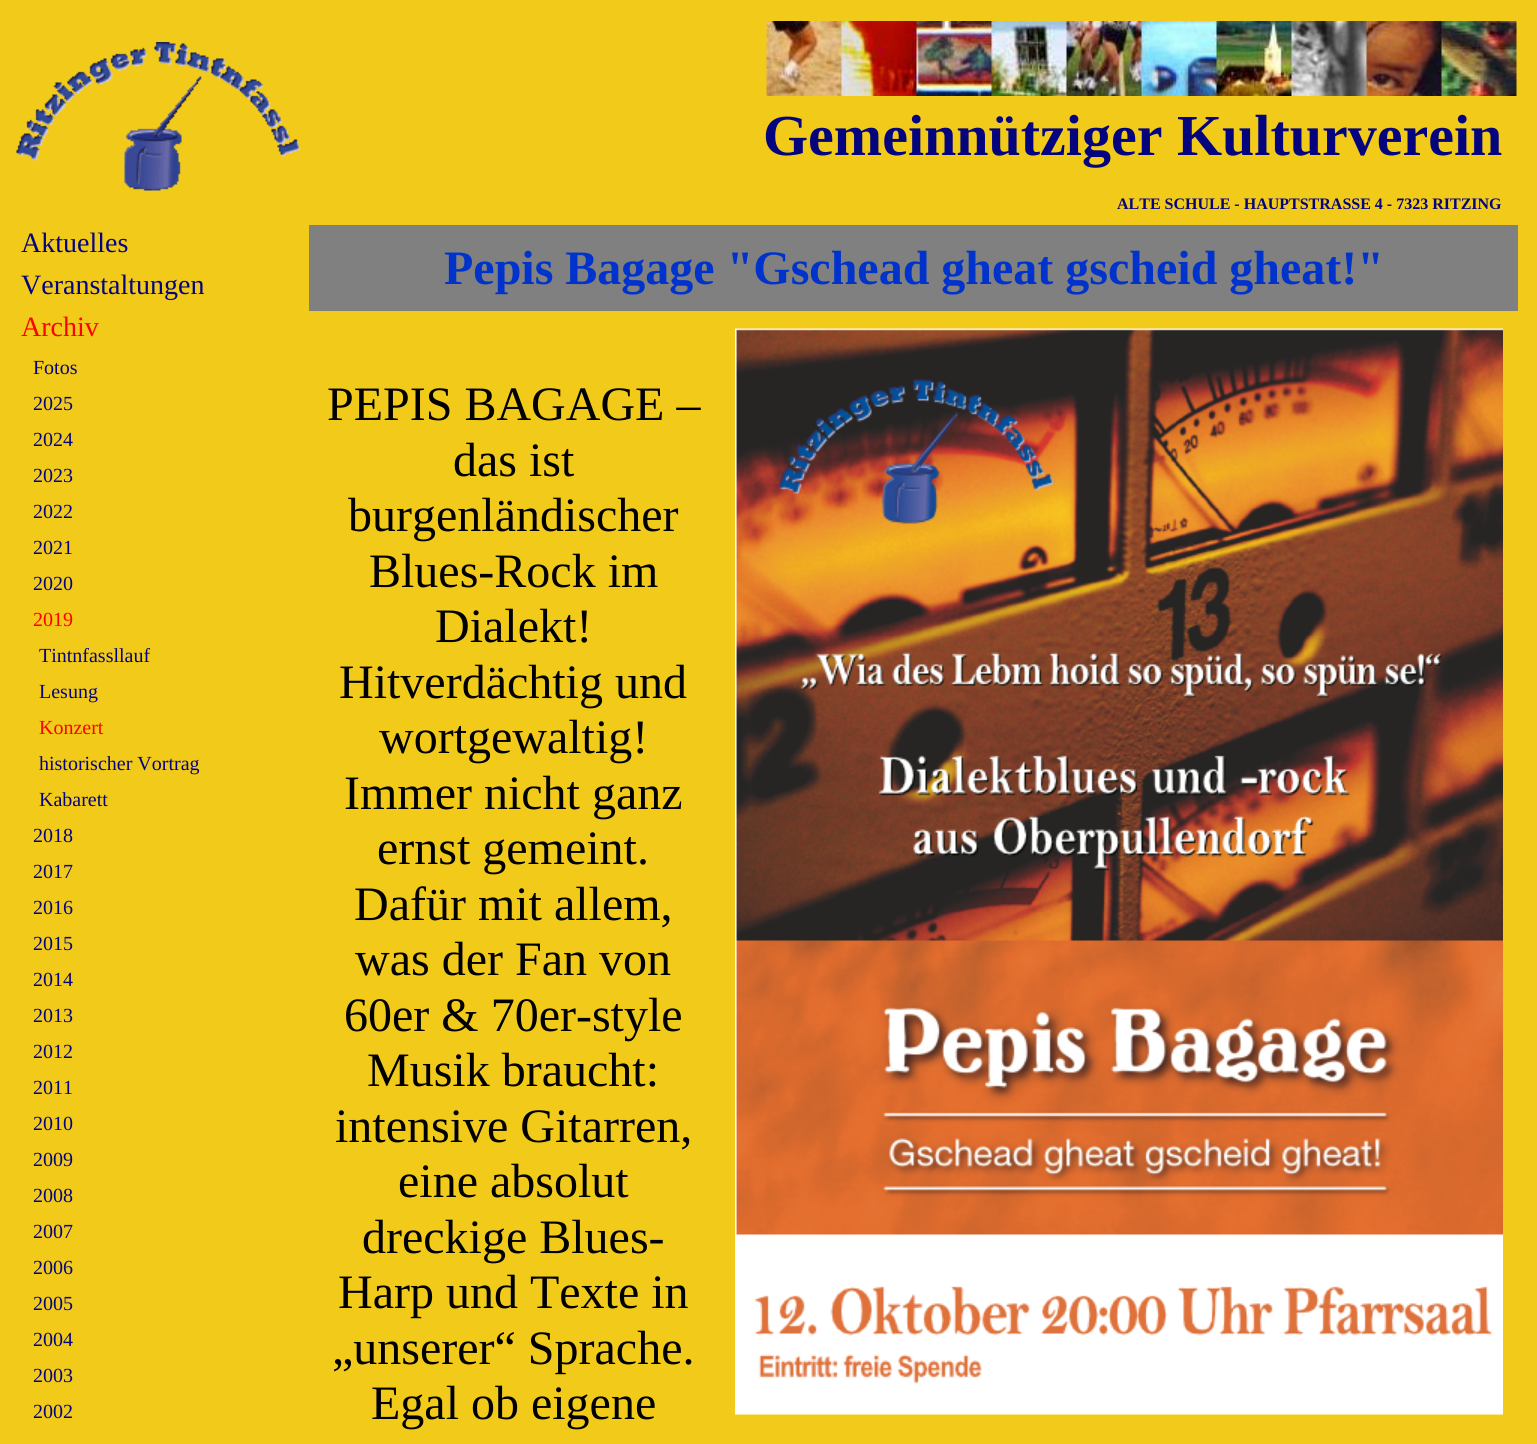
import math
import cairo


def paste(ctx, path, x, y, w, h):
	ctx.save()
	ctx.set_source_surface(cairo.ImageSurface.create_from_png(path), x, y)
	ctx.rectangle(x, y, w, h)
	ctx.fill()
	ctx.restore()

def draw(ctx):
	ctx.set_source_rgb(0.949, 0.792, 0.102)
	ctx.paint()
	paste(ctx, 'media/1.png', 16, 42, 284, 149)
	paste(ctx, 'media/2.png', 766, 21, 751, 75)
	ctx.select_font_face('Liberation Serif', cairo.FONT_SLANT_NORMAL, cairo.FONT_WEIGHT_BOLD)
	ctx.set_font_size(58)
	ctx.set_source_rgb(0.016, 0.016, 0.494)
	ctx.move_to(763, 155)
	ctx.show_text('Gemeinnütziger Kulturverein')
	ctx.set_font_size(16)
	ctx.move_to(1117, 209)
	ctx.show_text('ALTE SCHULE - HAUPTSTRASSE 4 - 7323 RITZING')
	ctx.select_font_face('Liberation Serif')
	ctx.set_font_size(28)
	ctx.move_to(21, 252)
	ctx.show_text('Aktuelles')
	ctx.move_to(21, 294)
	ctx.show_text('Veranstaltungen')
	ctx.set_source_rgb(1, 0, 0)
	ctx.move_to(21, 336)
	ctx.show_text('Archiv')
	ctx.set_font_size(20)
	ctx.set_source_rgb(0.016, 0.016, 0.494)
	for x, y, s in [
		(33, 374, 'Fotos'),
		(33, 410, '2025'),
		(33, 446, '2024'),
		(33, 482, '2023'),
		(33, 518, '2022'),
		(33, 554, '2021'),
		(33, 590, '2020'),
	]:
		ctx.move_to(x, y)
		ctx.show_text(s)
	ctx.set_source_rgb(1, 0, 0)
	ctx.move_to(33, 626)
	ctx.show_text('2019')
	ctx.set_source_rgb(0.016, 0.016, 0.494)
	ctx.move_to(39, 662)
	ctx.show_text('Tintnfassllauf')
	ctx.move_to(39, 698)
	ctx.show_text('Lesung')
	ctx.set_source_rgb(1, 0, 0)
	ctx.move_to(39, 734)
	ctx.show_text('Konzert')
	ctx.set_source_rgb(0.016, 0.016, 0.494)
	for x, y, s in [
		(39, 770, 'historischer Vortrag'),
		(39, 806, 'Kabarett'),
		(33, 842, '2018'),
		(33, 878, '2017'),
		(33, 914, '2016'),
		(33, 950, '2015'),
		(33, 986, '2014'),
		(33, 1022, '2013'),
		(33, 1058, '2012'),
		(33, 1094, '2011'),
		(33, 1130, '2010'),
		(33, 1166, '2009'),
		(33, 1202, '2008'),
		(33, 1238, '2007'),
		(33, 1274, '2006'),
		(33, 1310, '2005'),
		(33, 1346, '2004'),
		(33, 1382, '2003'),
		(33, 1418, '2002'),
	]:
		ctx.move_to(x, y)
		ctx.show_text(s)
	ctx.set_source_rgb(0.502, 0.502, 0.502)
	ctx.rectangle(309, 225, 1209, 86)
	ctx.fill()
	ctx.select_font_face('Liberation Serif', cairo.FONT_SLANT_NORMAL, cairo.FONT_WEIGHT_BOLD)
	ctx.set_font_size(48)
	ctx.set_source_rgb(0, 0.2, 0.8)
	ctx.move_to(444, 284)
	ctx.show_text('Pepis Bagage "Gschead gheat gscheid gheat!"')
	ctx.select_font_face('Liberation Serif')
	ctx.set_source_rgb(0, 0, 0)
	for x, y, s in [
		(327, 420, 'PEPIS BAGAGE –'),
		(453, 476, 'das ist'),
		(348, 531, 'burgenländischer'),
		(369, 587, 'Blues-Rock im'),
		(435, 642, 'Dialekt!'),
		(339, 698, 'Hitverdächtig und'),
		(379, 753, 'wortgewaltig!'),
		(344, 809, 'Immer nicht ganz'),
		(377, 864, 'ernst gemeint.'),
		(354, 920, 'Dafür mit allem,'),
		(355, 975, 'was der Fan von'),
		(344, 1031, '60er & 70er-style'),
		(367, 1086, 'Musik braucht:'),
		(335, 1142, 'intensive Gitarren,'),
		(398, 1197, 'eine absolut'),
		(362, 1253, 'dreckige Blues-'),
		(338, 1308, 'Harp und Texte in'),
		(332, 1364, '„unserer“ Sprache.'),
		(371, 1419, 'Egal ob eigene'),
	]:
		ctx.move_to(x, y)
		ctx.show_text(s)
	paste(ctx, 'media/3.png', 735, 328, 768, 1087)


surface = cairo.ImageSurface(cairo.FORMAT_RGB24, 1537, 1444)
ctx = cairo.Context(surface)
options = cairo.FontOptions()
options.set_hint_metrics(cairo.HINT_METRICS_OFF)
options.set_hint_style(cairo.HINT_STYLE_NONE)
ctx.set_font_options(options)
ctx.set_miter_limit(4)
draw(ctx)
surface.write_to_png('image.png')
